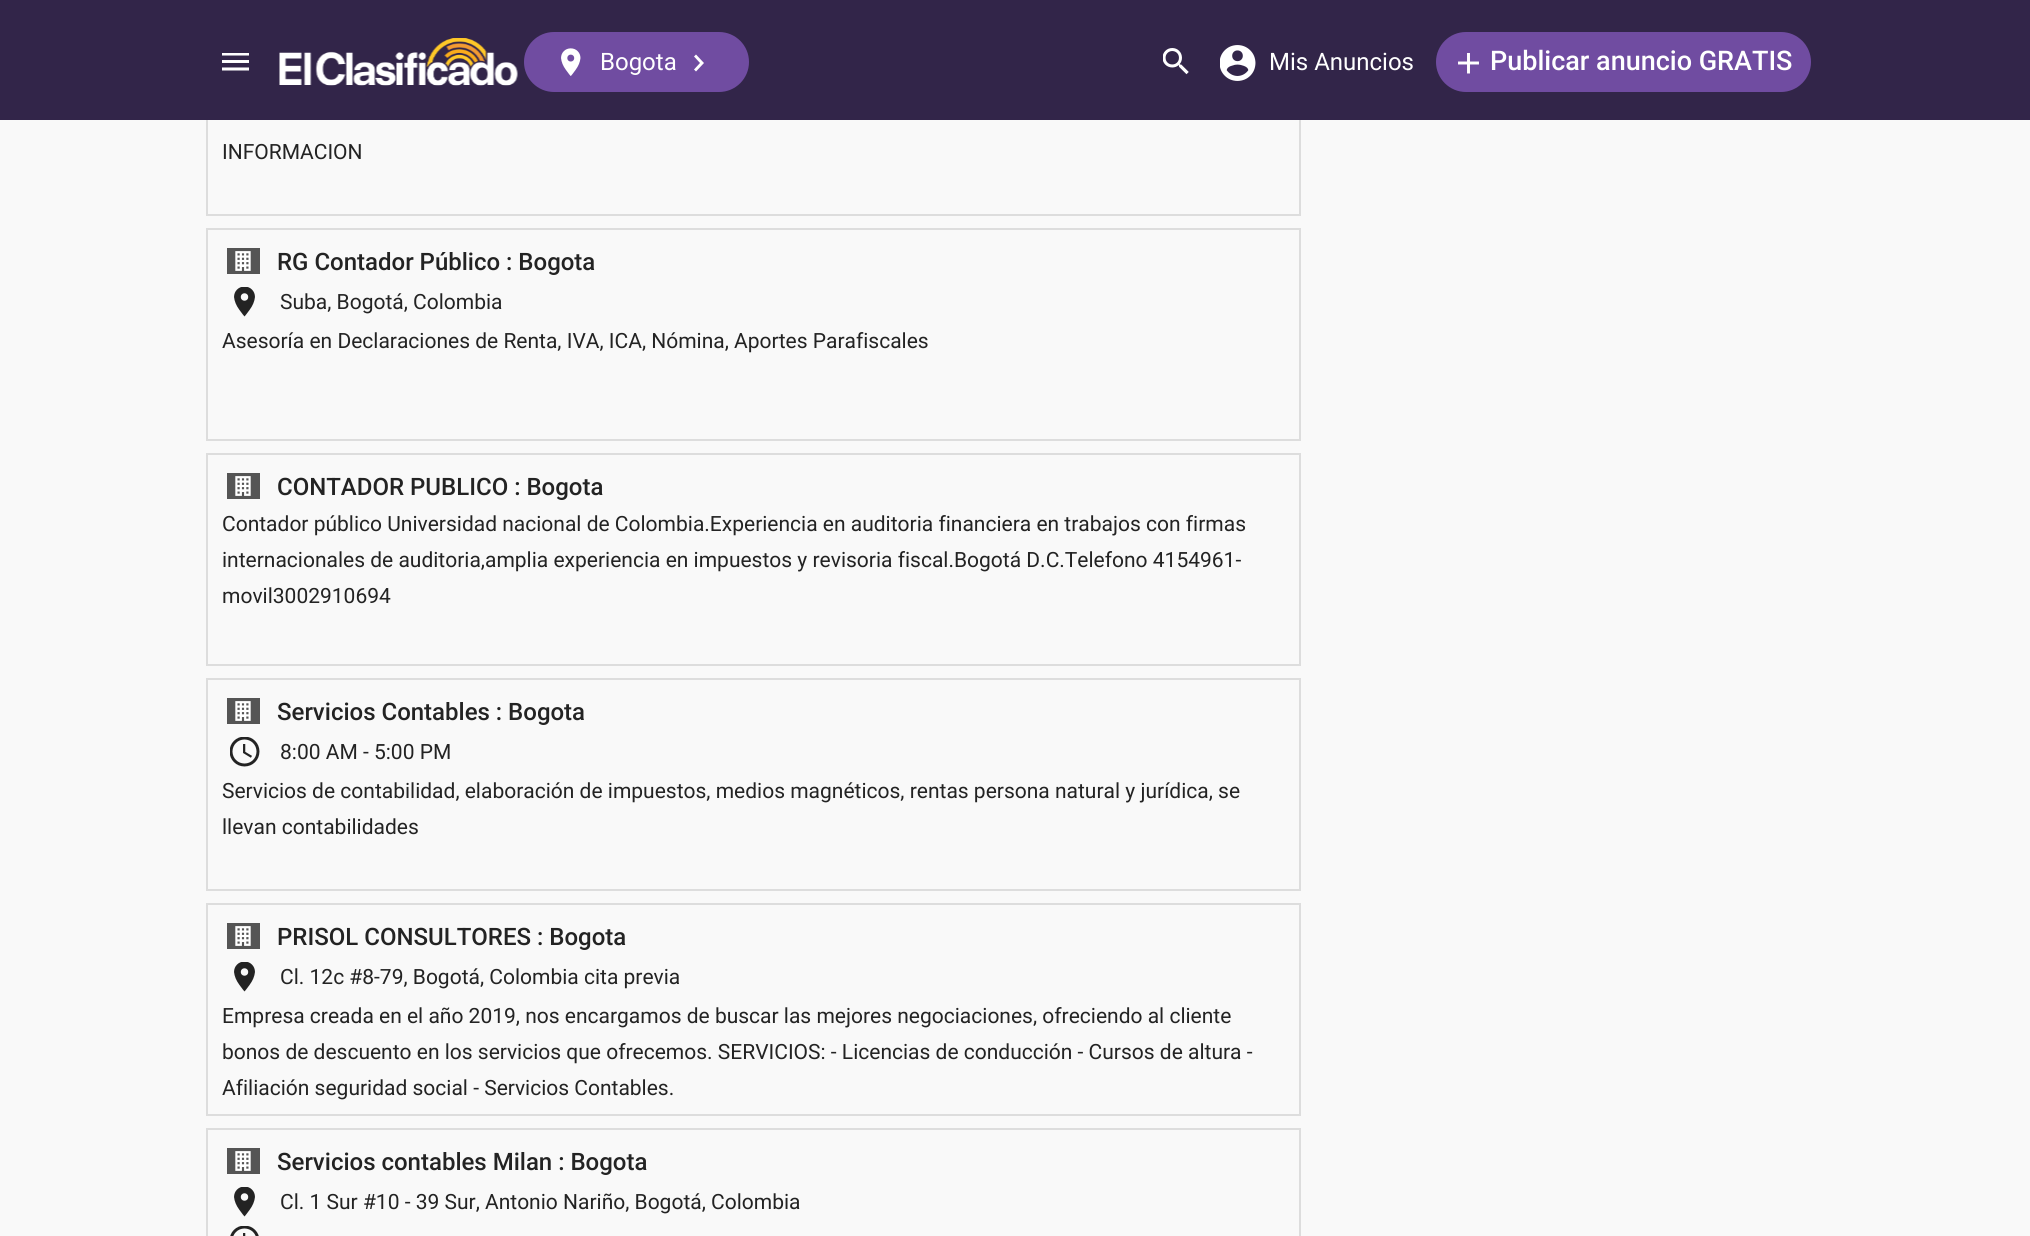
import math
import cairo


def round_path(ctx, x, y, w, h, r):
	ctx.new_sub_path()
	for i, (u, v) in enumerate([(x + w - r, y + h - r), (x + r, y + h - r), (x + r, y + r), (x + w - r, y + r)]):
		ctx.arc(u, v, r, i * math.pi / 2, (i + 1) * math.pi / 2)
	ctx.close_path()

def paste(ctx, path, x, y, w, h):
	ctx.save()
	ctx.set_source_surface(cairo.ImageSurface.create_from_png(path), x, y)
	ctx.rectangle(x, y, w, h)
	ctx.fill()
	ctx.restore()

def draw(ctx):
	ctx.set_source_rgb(0.973, 0.973, 0.973)
	ctx.paint()
	ctx.rectangle(207, 4, 1093, 211)
	ctx.set_source_rgb(0.867, 0.867, 0.867)
	ctx.stroke()
	ctx.set_source_rgb(0.196, 0.145, 0.286)
	ctx.rectangle(0, 0, 2030, 120)
	ctx.fill()
	paste(ctx, 'media/1.png', 222, 53, 27, 18)
	paste(ctx, 'media/2.png', 279, 38, 239, 48)
	ctx.set_source_rgb(0.439, 0.298, 0.631)
	round_path(ctx, 524, 32, 225, 60, 30)
	ctx.fill()
	paste(ctx, 'media/3.png', 561, 48, 20, 28)
	ctx.select_font_face('Roboto')
	ctx.set_font_size(24)
	ctx.set_source_rgb(1, 1, 1)
	ctx.move_to(600, 70)
	ctx.show_text('Bogota')
	ctx.new_path()
	ctx.move_to(694, 69.5)
	ctx.line_to(700, 63)
	ctx.line_to(694, 56.5)
	ctx.line_to(696, 54.5)
	ctx.line_to(704, 63)
	ctx.line_to(696, 71.5)
	ctx.close_path()
	ctx.fill()
	paste(ctx, 'media/4.png', 1163, 48, 26, 27)
	paste(ctx, 'media/5.png', 1220, 45, 36, 36)
	ctx.move_to(1269, 70)
	ctx.show_text('Mis Anuncios')
	ctx.set_source_rgb(0.439, 0.298, 0.631)
	round_path(ctx, 1436, 32, 375, 60, 30)
	ctx.fill()
	paste(ctx, 'media/6.png', 1458, 53, 21, 21)
	ctx.select_font_face('Roboto Medium')
	ctx.set_font_size(27)
	ctx.set_source_rgb(1, 1, 1)
	ctx.move_to(1490, 70)
	ctx.show_text('Publicar anuncio GRATIS')
	ctx.select_font_face('Roboto')
	ctx.set_font_size(21)
	ctx.set_source_rgb(0.137, 0.137, 0.137)
	ctx.move_to(222, 159)
	ctx.show_text('INFORMACION')
	ctx.rectangle(207, 229, 1093, 211)
	ctx.set_source_rgb(0.867, 0.867, 0.867)
	ctx.stroke()
	paste(ctx, 'media/7.png', 227, 248, 33, 26)
	ctx.select_font_face('Roboto Medium')
	ctx.set_font_size(24)
	ctx.set_source_rgb(0.137, 0.137, 0.137)
	ctx.move_to(277, 270)
	ctx.show_text('RG Contador Público : Bogota')
	paste(ctx, 'media/8.png', 234, 287, 21, 30)
	ctx.select_font_face('Roboto')
	ctx.set_font_size(21)
	ctx.move_to(280, 309)
	ctx.show_text('Suba, Bogotá, Colombia')
	ctx.move_to(222, 348)
	ctx.show_text('Asesoría en Declaraciones de Renta, IVA, ICA, Nómina, Aportes Parafiscales')
	ctx.rectangle(207, 454, 1093, 211)
	ctx.set_source_rgb(0.867, 0.867, 0.867)
	ctx.stroke()
	paste(ctx, 'media/7.png', 227, 473, 33, 26)
	ctx.select_font_face('Roboto Medium')
	ctx.set_font_size(24)
	ctx.set_source_rgb(0.137, 0.137, 0.137)
	ctx.move_to(277, 495)
	ctx.show_text('CONTADOR PUBLICO : Bogota')
	ctx.select_font_face('Roboto')
	ctx.set_font_size(21)
	for x, y, s in [
		(222, 531, 'Contador público Universidad nacional de Colombia.Experiencia en auditoria financiera en trabajos con firmas'),
		(222, 567, 'internacionales de auditoria,amplia experiencia en impuestos y revisoria fiscal.Bogotá D.C.Telefono 4154961-'),
		(222, 603, 'movil3002910694'),
	]:
		ctx.move_to(x, y)
		ctx.show_text(s)
	ctx.rectangle(207, 679, 1093, 211)
	ctx.set_source_rgb(0.867, 0.867, 0.867)
	ctx.stroke()
	paste(ctx, 'media/7.png', 227, 698, 33, 26)
	ctx.select_font_face('Roboto Medium')
	ctx.set_font_size(24)
	ctx.set_source_rgb(0.137, 0.137, 0.137)
	ctx.move_to(277, 720)
	ctx.show_text('Servicios Contables : Bogota')
	paste(ctx, 'media/9.png', 230, 737, 30, 30)
	ctx.select_font_face('Roboto')
	ctx.set_font_size(21)
	for x, y, s in [
		(280, 759, '8:00 AM - 5:00 PM'),
		(222, 798, 'Servicios de contabilidad, elaboración de impuestos, medios magnéticos, rentas persona natural y jurídica, se'),
		(222, 834, 'llevan contabilidades'),
	]:
		ctx.move_to(x, y)
		ctx.show_text(s)
	ctx.rectangle(207, 904, 1093, 211)
	ctx.set_source_rgb(0.867, 0.867, 0.867)
	ctx.stroke()
	paste(ctx, 'media/7.png', 227, 923, 33, 26)
	ctx.select_font_face('Roboto Medium')
	ctx.set_font_size(24)
	ctx.set_source_rgb(0.137, 0.137, 0.137)
	ctx.move_to(277, 945)
	ctx.show_text('PRISOL CONSULTORES : Bogota')
	paste(ctx, 'media/8.png', 234, 962, 21, 30)
	ctx.select_font_face('Roboto')
	ctx.set_font_size(21)
	for x, y, s in [
		(280, 984, 'Cl. 12c #8-79, Bogotá, Colombia cita previa'),
		(222, 1023, 'Empresa creada en el año 2019, nos encargamos de buscar las mejores negociaciones, ofreciendo al cliente'),
		(222, 1059, 'bonos de descuento en los servicios que ofrecemos. SERVICIOS: - Licencias de conducción - Cursos de altura -'),
		(222, 1095, 'Afiliación seguridad social - Servicios Contables.'),
	]:
		ctx.move_to(x, y)
		ctx.show_text(s)
	ctx.rectangle(207, 1129, 1093, 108)
	ctx.set_source_rgb(0.867, 0.867, 0.867)
	ctx.stroke()
	paste(ctx, 'media/7.png', 227, 1148, 33, 26)
	ctx.select_font_face('Roboto Medium')
	ctx.set_font_size(24)
	ctx.set_source_rgb(0.137, 0.137, 0.137)
	ctx.move_to(277, 1170)
	ctx.show_text('Servicios contables Milan : Bogota')
	paste(ctx, 'media/8.png', 234, 1187, 21, 30)
	ctx.select_font_face('Roboto')
	ctx.set_font_size(21)
	ctx.move_to(280, 1209)
	ctx.show_text('Cl. 1 Sur #10 - 39 Sur, Antonio Nariño, Bogotá, Colombia')
	paste(ctx, 'media/10.png', 230, 1226, 29, 10)


surface = cairo.ImageSurface(cairo.FORMAT_RGB24, 2030, 1236)
ctx = cairo.Context(surface)
options = cairo.FontOptions()
options.set_hint_metrics(cairo.HINT_METRICS_OFF)
options.set_hint_style(cairo.HINT_STYLE_NONE)
ctx.set_font_options(options)
ctx.set_miter_limit(4)
draw(ctx)
surface.write_to_png('image.png')
